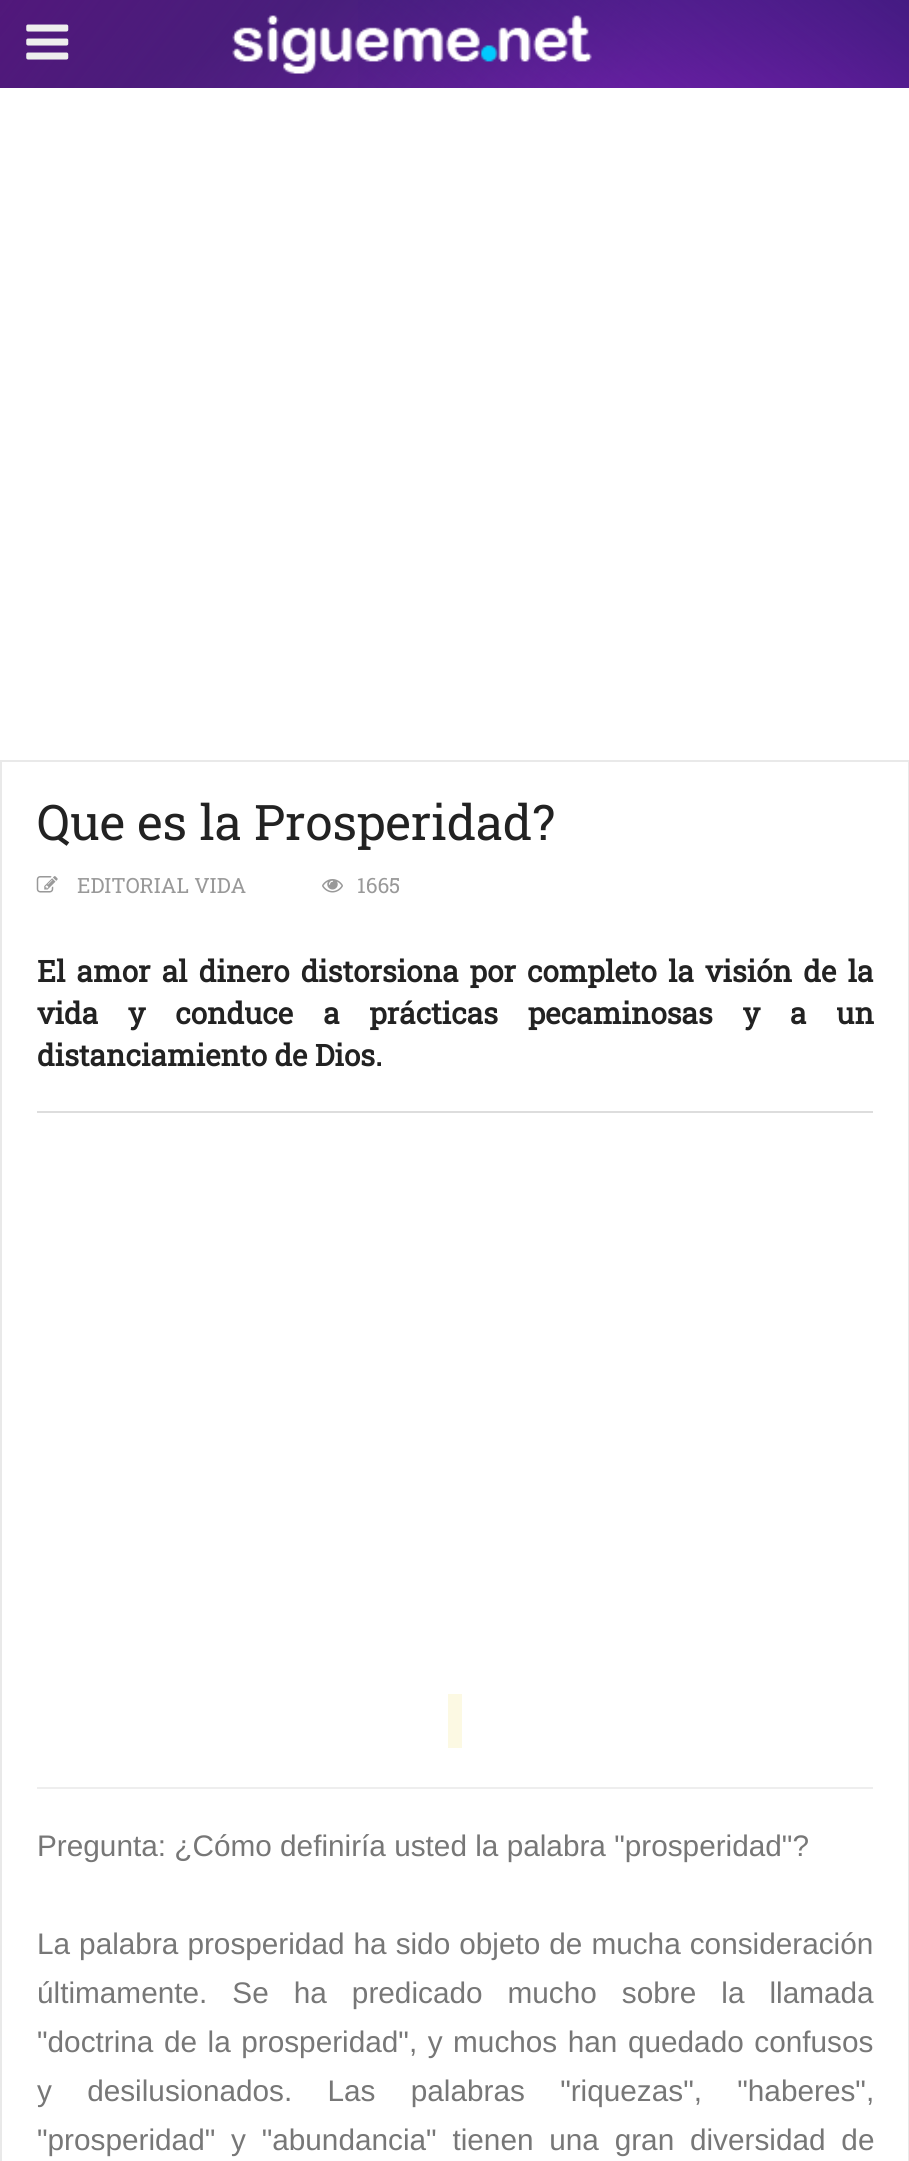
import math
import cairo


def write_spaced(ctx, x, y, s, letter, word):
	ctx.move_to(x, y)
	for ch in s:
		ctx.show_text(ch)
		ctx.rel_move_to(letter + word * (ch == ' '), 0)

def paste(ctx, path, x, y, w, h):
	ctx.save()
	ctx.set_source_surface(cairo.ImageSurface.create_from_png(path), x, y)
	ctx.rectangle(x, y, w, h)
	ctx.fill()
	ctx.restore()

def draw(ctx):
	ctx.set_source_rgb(1, 1, 1)
	ctx.paint()
	gradient = cairo.LinearGradient(547, 249, 363, -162)
	gradient.add_color_stop_rgba(0, 0.635, 0.129, 0.847, 1)
	gradient.add_color_stop_rgba(0.71, 0.243, 0.145, 0.486, 1)
	ctx.set_source(gradient)
	ctx.rectangle(0, 0, 909, 88)
	ctx.fill()
	gradient = cairo.LinearGradient(144, -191, 766, 278)
	gradient.add_color_stop_rgba(0, 0.318, 0.094, 0.482, 1)
	gradient.add_color_stop_rgba(0.71, 0.318, 0.094, 0.482, 0)
	ctx.set_source(gradient)
	ctx.rectangle(0, 0, 651, 88)
	ctx.fill()
	gradient = cairo.LinearGradient(641, -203, 269, 290)
	gradient.add_color_stop_rgba(0, 0.267, 0.106, 0.51, 1)
	gradient.add_color_stop_rgba(0.71, 0.267, 0.106, 0.51, 0)
	ctx.set_source(gradient)
	ctx.rectangle(358, 0, 551, 88)
	ctx.fill()
	paste(ctx, 'media/1.png', 26, 24, 43, 36)
	paste(ctx, 'media/2.png', 232, 15, 360, 59)
	ctx.rectangle(1, 761, 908, 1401)
	ctx.set_source_rgb(0.914, 0.914, 0.914)
	ctx.stroke()
	ctx.select_font_face('Roboto Slab')
	ctx.set_font_size(49)
	ctx.set_source_rgb(0.133, 0.133, 0.133)
	ctx.move_to(37, 840)
	ctx.show_text('Que es la Prosperidad?')
	paste(ctx, 'media/3.png', 36, 876, 22, 17)
	ctx.set_font_size(21)
	ctx.set_source_rgb(0.6, 0.6, 0.6)
	ctx.move_to(77, 893)
	ctx.show_text('EDITORIAL VIDA')
	paste(ctx, 'media/4.png', 322, 879, 21, 14)
	ctx.move_to(357, 893)
	ctx.show_text('1665')
	ctx.set_source_rgb(0.867, 0.867, 0.867)
	ctx.rectangle(37, 1111, 836, 2)
	ctx.fill()
	ctx.select_font_face('Roboto Slab', cairo.FONT_SLANT_NORMAL, cairo.FONT_WEIGHT_BOLD)
	ctx.set_font_size(29.75)
	ctx.set_source_rgb(0.133, 0.133, 0.133)
	write_spaced(ctx, 37, 982, 'El amor al dinero distorsiona por completo la visión de la', 0, 3.75)
	write_spaced(ctx, 37, 1024, 'vida y conduce a prácticas pecaminosas y a un', 0, 22.5)
	ctx.move_to(37, 1066)
	ctx.show_text('distanciamiento de Dios.')
	ctx.set_source_rgb(0.988, 0.973, 0.89)
	ctx.rectangle(448, 1694, 14, 54)
	ctx.fill()
	ctx.set_source_rgb(0.933, 0.933, 0.933)
	ctx.rectangle(37, 1787, 836, 2)
	ctx.fill()
	ctx.select_font_face('Liberation Sans')
	ctx.set_source_rgb(0.467, 0.467, 0.467)
	ctx.move_to(37, 1856)
	ctx.show_text('Pregunta: ¿Cómo definiría usted la palabra "prosperidad"?')
	write_spaced(ctx, 37, 1954, 'La palabra prosperidad ha sido objeto de mucha consideración', 0, 0.75)
	write_spaced(ctx, 37, 2003, 'últimamente. Se ha predicado mucho sobre la llamada', 0, 16.75)
	write_spaced(ctx, 37, 2052, '"doctrina de la prosperidad", y muchos han quedado confusos', 0, 2.25)
	write_spaced(ctx, 37, 2101, 'y desilusionados. Las palabras "riquezas", "haberes",', 0, 27)
	write_spaced(ctx, 37, 2150, '"prosperidad" y "abundancia" tienen una gran diversidad de', 0, 7.5)


surface = cairo.ImageSurface(cairo.FORMAT_RGB24, 909, 2161)
ctx = cairo.Context(surface)
options = cairo.FontOptions()
options.set_hint_metrics(cairo.HINT_METRICS_OFF)
options.set_hint_style(cairo.HINT_STYLE_NONE)
ctx.set_font_options(options)
ctx.set_miter_limit(4)
draw(ctx)
surface.write_to_png('image.png')
